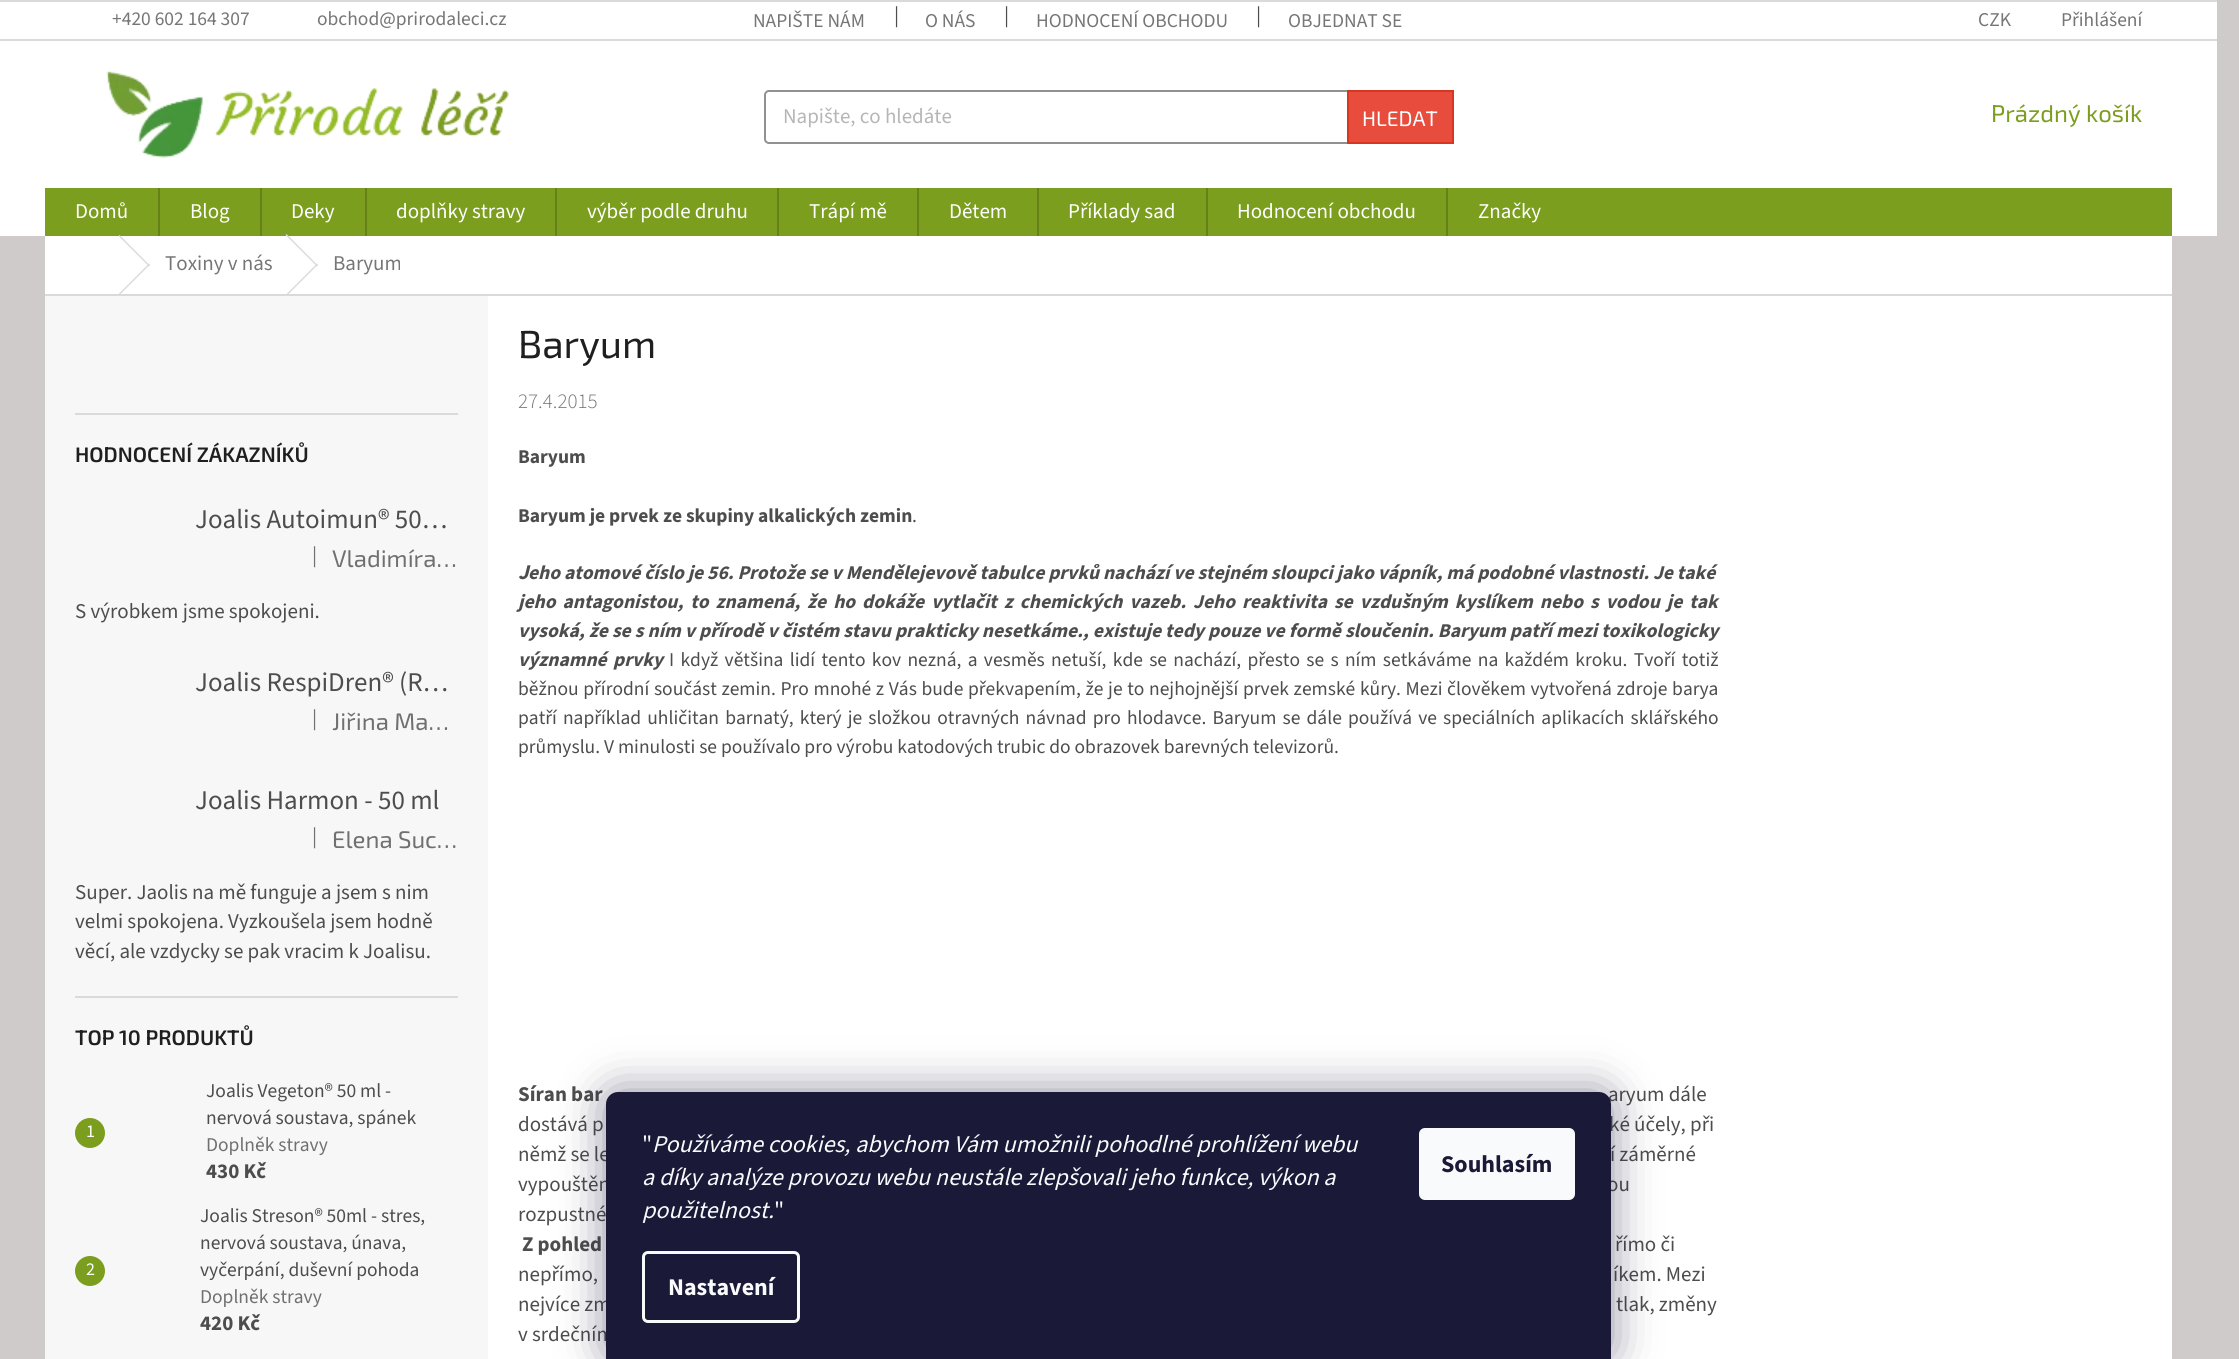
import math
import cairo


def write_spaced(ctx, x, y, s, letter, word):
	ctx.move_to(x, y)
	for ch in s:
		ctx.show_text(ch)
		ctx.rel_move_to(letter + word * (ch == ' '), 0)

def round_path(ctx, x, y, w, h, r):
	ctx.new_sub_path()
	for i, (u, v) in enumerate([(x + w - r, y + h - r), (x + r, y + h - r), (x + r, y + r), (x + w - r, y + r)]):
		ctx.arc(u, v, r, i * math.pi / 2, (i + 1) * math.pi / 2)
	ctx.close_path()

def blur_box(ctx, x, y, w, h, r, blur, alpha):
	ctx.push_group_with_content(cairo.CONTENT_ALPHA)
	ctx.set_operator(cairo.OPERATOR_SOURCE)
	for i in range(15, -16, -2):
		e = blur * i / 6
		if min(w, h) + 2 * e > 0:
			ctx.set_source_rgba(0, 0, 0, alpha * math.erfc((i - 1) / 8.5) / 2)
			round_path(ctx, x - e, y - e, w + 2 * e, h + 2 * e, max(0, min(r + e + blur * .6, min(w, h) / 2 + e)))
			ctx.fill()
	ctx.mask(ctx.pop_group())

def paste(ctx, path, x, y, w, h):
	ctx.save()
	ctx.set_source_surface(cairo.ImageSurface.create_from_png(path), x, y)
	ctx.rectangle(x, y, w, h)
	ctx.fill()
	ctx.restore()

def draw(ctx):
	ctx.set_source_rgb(0.812, 0.796, 0.792)
	ctx.paint()
	ctx.set_source_rgb(1, 1, 1)
	ctx.rectangle(0, 2, 2217, 37)
	ctx.fill()
	ctx.set_source_rgb(0.855, 0.855, 0.855)
	ctx.rectangle(0, 0, 2217, 2)
	ctx.rectangle(0, 39, 2217, 2)
	ctx.fill()
	ctx.select_font_face('Source Sans 3')
	ctx.set_font_size(19.5)
	ctx.set_source_rgb(0.463, 0.463, 0.463)
	for x, y, s in [
		(112, 25, '+420 602 164 307'),
		(317, 25, 'obchod@prirodaleci.cz'),
		(753, 27, 'NAPIŠTE NÁM'),
	]:
		ctx.move_to(x, y)
		ctx.show_text(s)
	ctx.set_font_size(21)
	ctx.set_source_rgb(0.302, 0.302, 0.302)
	ctx.move_to(894, 22)
	ctx.show_text('|')
	ctx.set_font_size(19.5)
	ctx.set_source_rgb(0.463, 0.463, 0.463)
	ctx.move_to(925, 27)
	ctx.show_text('O NÁS')
	ctx.set_font_size(21)
	ctx.set_source_rgb(0.302, 0.302, 0.302)
	ctx.move_to(1004, 22)
	ctx.show_text('|')
	ctx.set_font_size(19.5)
	ctx.set_source_rgb(0.463, 0.463, 0.463)
	ctx.move_to(1036, 27)
	ctx.show_text('HODNOCENÍ OBCHODU')
	ctx.set_font_size(21)
	ctx.set_source_rgb(0.302, 0.302, 0.302)
	ctx.move_to(1256, 22)
	ctx.show_text('|')
	ctx.set_font_size(19.5)
	ctx.set_source_rgb(0.463, 0.463, 0.463)
	for x, y, s in [
		(1288, 27, 'OBJEDNAT SE'),
		(1978, 26, 'CZK'),
		(2061, 26, 'Přihlášení'),
	]:
		ctx.move_to(x, y)
		ctx.show_text(s)
	ctx.set_source_rgb(1, 1, 1)
	ctx.rectangle(0, 41, 2217, 195)
	ctx.fill()
	paste(ctx, 'media/1.png', 106, 70, 403, 88)
	round_path(ctx, 765, 91, 688, 52, 4)
	ctx.set_source_rgb(0.569, 0.569, 0.569)
	ctx.stroke()
	ctx.set_font_size(21)
	ctx.set_source_rgb(0.714, 0.714, 0.714)
	ctx.move_to(783, 123)
	ctx.show_text('Napište, co hledáte')
	ctx.set_source_rgb(0.906, 0.298, 0.235)
	ctx.rectangle(1348, 91, 105, 52)
	ctx.fill_preserve()
	ctx.set_source_rgb(0.851, 0.212, 0.129)
	ctx.stroke()
	ctx.select_font_face('Exo 2')
	ctx.set_source_rgb(1, 1, 1)
	ctx.move_to(1362, 126)
	ctx.show_text('HLEDAT')
	ctx.set_font_size(24)
	ctx.set_source_rgb(0.486, 0.62, 0.118)
	ctx.move_to(1991, 122)
	ctx.show_text('Prázdný košík')
	ctx.rectangle(45, 188, 2127, 48)
	ctx.fill()
	ctx.select_font_face('Source Sans 3')
	ctx.set_font_size(21)
	ctx.set_source_rgb(1, 1, 1)
	ctx.move_to(75, 218)
	ctx.show_text('Domů')
	ctx.set_source_rgb(0.396, 0.506, 0.094)
	ctx.rectangle(158, 188, 2, 48)
	ctx.fill()
	ctx.set_source_rgb(1, 1, 1)
	ctx.move_to(190, 218)
	ctx.show_text('Blog')
	ctx.set_source_rgb(0.396, 0.506, 0.094)
	ctx.rectangle(260, 188, 2, 48)
	ctx.fill()
	ctx.set_source_rgb(1, 1, 1)
	ctx.move_to(291, 218)
	ctx.show_text('Deky')
	ctx.set_source_rgb(0.396, 0.506, 0.094)
	ctx.rectangle(365, 188, 2, 48)
	ctx.fill()
	ctx.set_source_rgb(1, 1, 1)
	ctx.move_to(396, 218)
	ctx.show_text('doplňky stravy')
	ctx.set_source_rgb(0.396, 0.506, 0.094)
	ctx.rectangle(555, 188, 2, 48)
	ctx.fill()
	ctx.set_source_rgb(1, 1, 1)
	ctx.move_to(587, 218)
	ctx.show_text('výběr podle druhu')
	ctx.set_source_rgb(0.396, 0.506, 0.094)
	ctx.rectangle(777, 188, 2, 48)
	ctx.fill()
	ctx.set_source_rgb(1, 1, 1)
	ctx.move_to(809, 218)
	ctx.show_text('Trápí mě')
	ctx.set_source_rgb(0.396, 0.506, 0.094)
	ctx.rectangle(917, 188, 2, 48)
	ctx.fill()
	ctx.set_source_rgb(1, 1, 1)
	ctx.move_to(949, 218)
	ctx.show_text('Dětem')
	ctx.set_source_rgb(0.396, 0.506, 0.094)
	ctx.rectangle(1037, 188, 2, 48)
	ctx.fill()
	ctx.set_source_rgb(1, 1, 1)
	ctx.move_to(1068, 218)
	ctx.show_text('Příklady sad')
	ctx.set_source_rgb(0.396, 0.506, 0.094)
	ctx.rectangle(1206, 188, 2, 48)
	ctx.fill()
	ctx.set_source_rgb(1, 1, 1)
	ctx.move_to(1237, 218)
	ctx.show_text('Hodnocení obchodu')
	ctx.set_source_rgb(0.396, 0.506, 0.094)
	ctx.rectangle(1446, 188, 2, 48)
	ctx.fill()
	ctx.set_source_rgb(1, 1, 1)
	ctx.move_to(1478, 218)
	ctx.show_text('Značky')
	ctx.rectangle(45, 236, 2127, 58)
	ctx.fill()
	ctx.set_source_rgb(0.855, 0.855, 0.855)
	ctx.rectangle(45, 294, 2127, 2)
	ctx.fill()
	ctx.new_path()
	ctx.move_to(118.5, 236)
	ctx.line_to(119.5, 235)
	ctx.line_to(150, 265.5)
	ctx.line_to(149, 266.5)
	ctx.close_path()
	ctx.fill()
	ctx.new_path()
	ctx.move_to(149, 263.5)
	ctx.line_to(150, 264.5)
	ctx.line_to(119.5, 295)
	ctx.line_to(118.5, 294)
	ctx.close_path()
	ctx.fill()
	ctx.set_source_rgb(0.463, 0.463, 0.463)
	ctx.move_to(165, 270)
	ctx.show_text('Toxiny v nás')
	ctx.set_source_rgb(0.855, 0.855, 0.855)
	ctx.new_path()
	ctx.move_to(285.5, 235)
	ctx.line_to(286.5, 234)
	ctx.line_to(318, 265.5)
	ctx.line_to(317, 266.5)
	ctx.close_path()
	ctx.fill()
	ctx.new_path()
	ctx.move_to(317, 263.5)
	ctx.line_to(318, 264.5)
	ctx.line_to(286.5, 296)
	ctx.line_to(285.5, 295)
	ctx.close_path()
	ctx.fill()
	ctx.set_source_rgb(0.463, 0.463, 0.463)
	ctx.move_to(333, 270)
	ctx.show_text('Baryum')
	ctx.set_source_rgb(1, 1, 1)
	ctx.rectangle(488, 296, 1684, 1063)
	ctx.fill()
	ctx.set_source_rgb(0.965, 0.965, 0.965)
	ctx.rectangle(45, 296, 443, 1063)
	ctx.fill()
	ctx.set_source_rgb(0.855, 0.855, 0.855)
	ctx.rectangle(75, 413, 383, 2)
	ctx.rectangle(75, 996, 383, 2)
	ctx.fill()
	ctx.select_font_face('Exo 2 SemiBold')
	ctx.set_source_rgb(0.122, 0.122, 0.122)
	ctx.move_to(75, 462)
	ctx.show_text('HODNOCENÍ ZÁKAZNÍKŮ')
	ctx.select_font_face('Source Sans 3')
	ctx.set_font_size(27)
	ctx.set_source_rgb(0.302, 0.302, 0.302)
	ctx.move_to(195, 528)
	ctx.show_text('Joalis Autoimun® 50…')
	ctx.set_font_size(21)
	ctx.set_source_rgb(0.439, 0.439, 0.439)
	ctx.move_to(312, 562)
	ctx.show_text('|')
	ctx.select_font_face('Exo 2')
	ctx.set_font_size(24)
	ctx.move_to(332, 567)
	ctx.show_text('Vladimíra…')
	ctx.select_font_face('Source Sans 3')
	ctx.set_font_size(21)
	ctx.set_source_rgb(0.302, 0.302, 0.302)
	ctx.move_to(75, 618)
	ctx.show_text('S výrobkem jsme spokojeni.')
	ctx.set_font_size(27)
	ctx.move_to(195, 691)
	ctx.show_text('Joalis RespiDren® (R…')
	ctx.set_font_size(21)
	ctx.set_source_rgb(0.439, 0.439, 0.439)
	ctx.move_to(312, 725)
	ctx.show_text('|')
	ctx.select_font_face('Exo 2')
	ctx.set_font_size(24)
	ctx.move_to(332, 730)
	ctx.show_text('Jiřina Ma…')
	ctx.select_font_face('Source Sans 3')
	ctx.set_font_size(27)
	ctx.set_source_rgb(0.302, 0.302, 0.302)
	ctx.move_to(195, 809)
	ctx.show_text('Joalis Harmon - 50 ml')
	ctx.set_font_size(21)
	ctx.set_source_rgb(0.439, 0.439, 0.439)
	ctx.move_to(312, 843)
	ctx.show_text('|')
	ctx.select_font_face('Exo 2')
	ctx.set_font_size(24)
	ctx.move_to(332, 848)
	ctx.show_text('Elena Suc…')
	ctx.select_font_face('Source Sans 3')
	ctx.set_font_size(21)
	ctx.set_source_rgb(0.302, 0.302, 0.302)
	for x, y, s in [
		(75, 899, 'Super. Jaolis na mě funguje a jsem s nim'),
		(75, 928, 'velmi spokojena. Vyzkoušela jsem hodně'),
		(75, 958, 'věcí, ale vzdycky se pak vracim k Joalisu.'),
	]:
		ctx.move_to(x, y)
		ctx.show_text(s)
	ctx.select_font_face('Exo 2 SemiBold')
	ctx.set_source_rgb(0.122, 0.122, 0.122)
	ctx.move_to(75, 1045)
	ctx.show_text('TOP 10 PRODUKTŮ')
	ctx.set_source_rgb(0.486, 0.62, 0.118)
	ctx.new_path()
	ctx.arc(90, 1133, 15, 0, 2 * math.pi)
	ctx.fill()
	ctx.select_font_face('Source Sans 3')
	ctx.set_font_size(18)
	ctx.set_source_rgb(1, 1, 1)
	ctx.move_to(86, 1137)
	ctx.show_text('1')
	ctx.set_font_size(19.5)
	ctx.set_source_rgb(0.302, 0.302, 0.302)
	ctx.move_to(206, 1097)
	ctx.show_text('Joalis Vegeton® 50 ml -')
	ctx.move_to(206, 1124)
	ctx.show_text('nervová soustava, spánek')
	ctx.set_source_rgb(0.439, 0.439, 0.439)
	ctx.move_to(206, 1151)
	ctx.show_text('Doplněk stravy')
	ctx.select_font_face('Source Sans 3', cairo.FONT_SLANT_NORMAL, cairo.FONT_WEIGHT_BOLD)
	ctx.set_font_size(21)
	ctx.set_source_rgb(0.302, 0.302, 0.302)
	ctx.move_to(206, 1178)
	ctx.show_text('430 Kč')
	ctx.set_source_rgb(0.486, 0.62, 0.118)
	ctx.new_path()
	ctx.arc(90, 1271, 15, 0, 2 * math.pi)
	ctx.fill()
	ctx.select_font_face('Source Sans 3')
	ctx.set_font_size(18)
	ctx.set_source_rgb(1, 1, 1)
	ctx.move_to(86, 1275)
	ctx.show_text('2')
	ctx.set_font_size(19.5)
	ctx.set_source_rgb(0.302, 0.302, 0.302)
	for x, y, s in [
		(200, 1222, 'Joalis Streson® 50ml - stres,'),
		(200, 1249, 'nervová soustava, únava,'),
		(200, 1276, 'vyčerpání, duševní pohoda'),
	]:
		ctx.move_to(x, y)
		ctx.show_text(s)
	ctx.set_source_rgb(0.439, 0.439, 0.439)
	ctx.move_to(200, 1303)
	ctx.show_text('Doplněk stravy')
	ctx.select_font_face('Source Sans 3', cairo.FONT_SLANT_NORMAL, cairo.FONT_WEIGHT_BOLD)
	ctx.set_font_size(21)
	ctx.set_source_rgb(0.302, 0.302, 0.302)
	ctx.move_to(200, 1330)
	ctx.show_text('420 Kč')
	ctx.select_font_face('Exo 2')
	ctx.set_font_size(39)
	ctx.set_source_rgb(0.122, 0.122, 0.122)
	ctx.move_to(518, 358)
	ctx.show_text('Baryum')
	ctx.select_font_face('Source Sans 3 Light')
	ctx.set_font_size(21)
	ctx.set_source_rgb(0.463, 0.463, 0.463)
	ctx.move_to(518, 408)
	ctx.show_text('27.4.2015')
	ctx.select_font_face('Source Sans 3', cairo.FONT_SLANT_NORMAL, cairo.FONT_WEIGHT_BOLD)
	ctx.set_font_size(19.5)
	ctx.set_source_rgb(0.302, 0.302, 0.302)
	ctx.move_to(518, 463)
	ctx.show_text('Baryum')
	ctx.move_to(518, 522)
	ctx.show_text('Baryum je prvek ze skupiny alkalických zemin')
	ctx.select_font_face('Source Sans 3')
	ctx.move_to(912, 522)
	ctx.show_text('.')
	ctx.select_font_face('Source Sans 3', cairo.FONT_SLANT_ITALIC, cairo.FONT_WEIGHT_BOLD)
	ctx.set_font_size(21)
	ctx.move_to(518, 579)
	ctx.show_text('J')
	ctx.set_font_size(19.5)
	ctx.move_to(528, 579)
	ctx.show_text('eho atomové číslo je 56. Protože se v Mendělejevově tabulce prvků nachází ve stejném sloupci jako vápník, má podobné vlastnosti. Je také')
	write_spaced(ctx, 518, 608, 'jeho antagonistou, to znamená, že ho dokáže vytlačit z chemických vazeb. Jeho reaktivita se vzdušným kyslíkem nebo s vodou je tak', 0, 3.1)
	write_spaced(ctx, 518, 637, 'vysoká, že se s ním v přírodě v čistém stavu prakticky nesetkáme., existuje tedy pouze ve formě sloučenin. Baryum patří mezi toxikologicky', 0, 0.2)
	write_spaced(ctx, 518, 666, 'významné prvky', 0, 2.4)
	ctx.select_font_face('Source Sans 3')
	write_spaced(ctx, 669, 666, 'I když většina lidí tento kov nezná, a vesměs netuší, kde se nachází, přesto se s ním setkáváme na každém kroku. Tvoří totiž', 0, 2.4)
	write_spaced(ctx, 518, 695, 'běžnou přírodní součást zemin. Pro mnohé z Vás bude překvapením, že je to nejhojnější prvek zemské kůry. Mezi člověkem vytvořená zdroje barya', 0, 0.75)
	write_spaced(ctx, 518, 724, 'patří například uhličitan barnatý, který je složkou otravných návnad pro hlodavce. Baryum se dále používá ve speciálních aplikacích sklářského', 0, 2.25)
	ctx.move_to(518, 753)
	ctx.show_text('průmyslu. V minulosti se používalo pro výrobu katodových trubic do obrazovek barevných televizorů.')
	ctx.select_font_face('Source Sans 3', cairo.FONT_SLANT_NORMAL, cairo.FONT_WEIGHT_BOLD)
	ctx.set_font_size(21)
	ctx.move_to(518, 1101)
	ctx.show_text('Síran bar')
	ctx.select_font_face('Source Sans 3')
	for x, y, s in [
		(1608, 1101, 'aryum dále'),
		(518, 1131, 'dostává p'),
		(1609, 1131, 'ké účely, při'),
		(518, 1161, 'němž se le'),
		(1610, 1161, 'í záměrné'),
		(518, 1191, 'vypouštěn'),
		(1607, 1191, 'ou'),
		(518, 1221, 'rozpustné'),
	]:
		ctx.move_to(x, y)
		ctx.show_text(s)
	ctx.select_font_face('Source Sans 3', cairo.FONT_SLANT_NORMAL, cairo.FONT_WEIGHT_BOLD)
	ctx.move_to(522, 1251)
	ctx.show_text('Z pohled')
	ctx.select_font_face('Source Sans 3')
	for x, y, s in [
		(1615, 1251, 'římo či'),
		(518, 1281, 'nepřímo,'),
		(1613, 1281, 'íkem. Mezi'),
		(518, 1311, 'nejvíce zm'),
		(1616, 1311, 'tlak, změny'),
		(518, 1341, 'v srdečním'),
	]:
		ctx.move_to(x, y)
		ctx.show_text(s)
	ctx.set_source_rgb(0.106, 0.098, 0.224)
	blur_box(ctx, 606, 1092, 1005, 267, 12, 22.5, 0.5)
	ctx.set_source_rgb(0.102, 0.098, 0.216)
	ctx.new_path()
	ctx.move_to(618, 1092)
	ctx.line_to(1599, 1092)
	ctx.curve_to(1605.5, 1092, 1611, 1097.5, 1611, 1104)
	ctx.line_to(1611, 1359)
	ctx.line_to(606, 1359)
	ctx.line_to(606, 1104)
	ctx.curve_to(606, 1097.5, 611.5, 1092, 618, 1092)
	ctx.close_path()
	ctx.fill()
	ctx.set_font_size(24)
	ctx.set_source_rgb(0.973, 0.98, 0.984)
	ctx.move_to(642, 1152)
	ctx.show_text('"')
	ctx.select_font_face('Source Sans 3', cairo.FONT_SLANT_ITALIC)
	for x, y, s in [
		(652, 1152, 'Používáme cookies, abychom Vám umožnili pohodlné prohlížení webu'),
		(642, 1185, 'a díky analýze provozu webu neustále zlepšovali jeho funkce, výkon a'),
		(642, 1218, 'použitelnost.'),
	]:
		ctx.move_to(x, y)
		ctx.show_text(s)
	ctx.select_font_face('Source Sans 3')
	ctx.move_to(774, 1218)
	ctx.show_text('"')
	round_path(ctx, 643.5, 1252.5, 155, 69, 4.5)
	ctx.set_line_width(3)
	ctx.stroke()
	ctx.select_font_face('Source Sans 3', cairo.FONT_SLANT_NORMAL, cairo.FONT_WEIGHT_BOLD)
	ctx.move_to(668, 1295)
	ctx.show_text('Nastavení')
	round_path(ctx, 1419, 1128, 156, 72, 6)
	ctx.fill()
	ctx.set_source_rgb(0.102, 0.098, 0.216)
	ctx.move_to(1441, 1172)
	ctx.show_text('Souhlasím')


surface = cairo.ImageSurface(cairo.FORMAT_RGB24, 2239, 1359)
ctx = cairo.Context(surface)
options = cairo.FontOptions()
options.set_hint_metrics(cairo.HINT_METRICS_OFF)
options.set_hint_style(cairo.HINT_STYLE_NONE)
ctx.set_font_options(options)
ctx.set_miter_limit(4)
draw(ctx)
surface.write_to_png('image.png')
